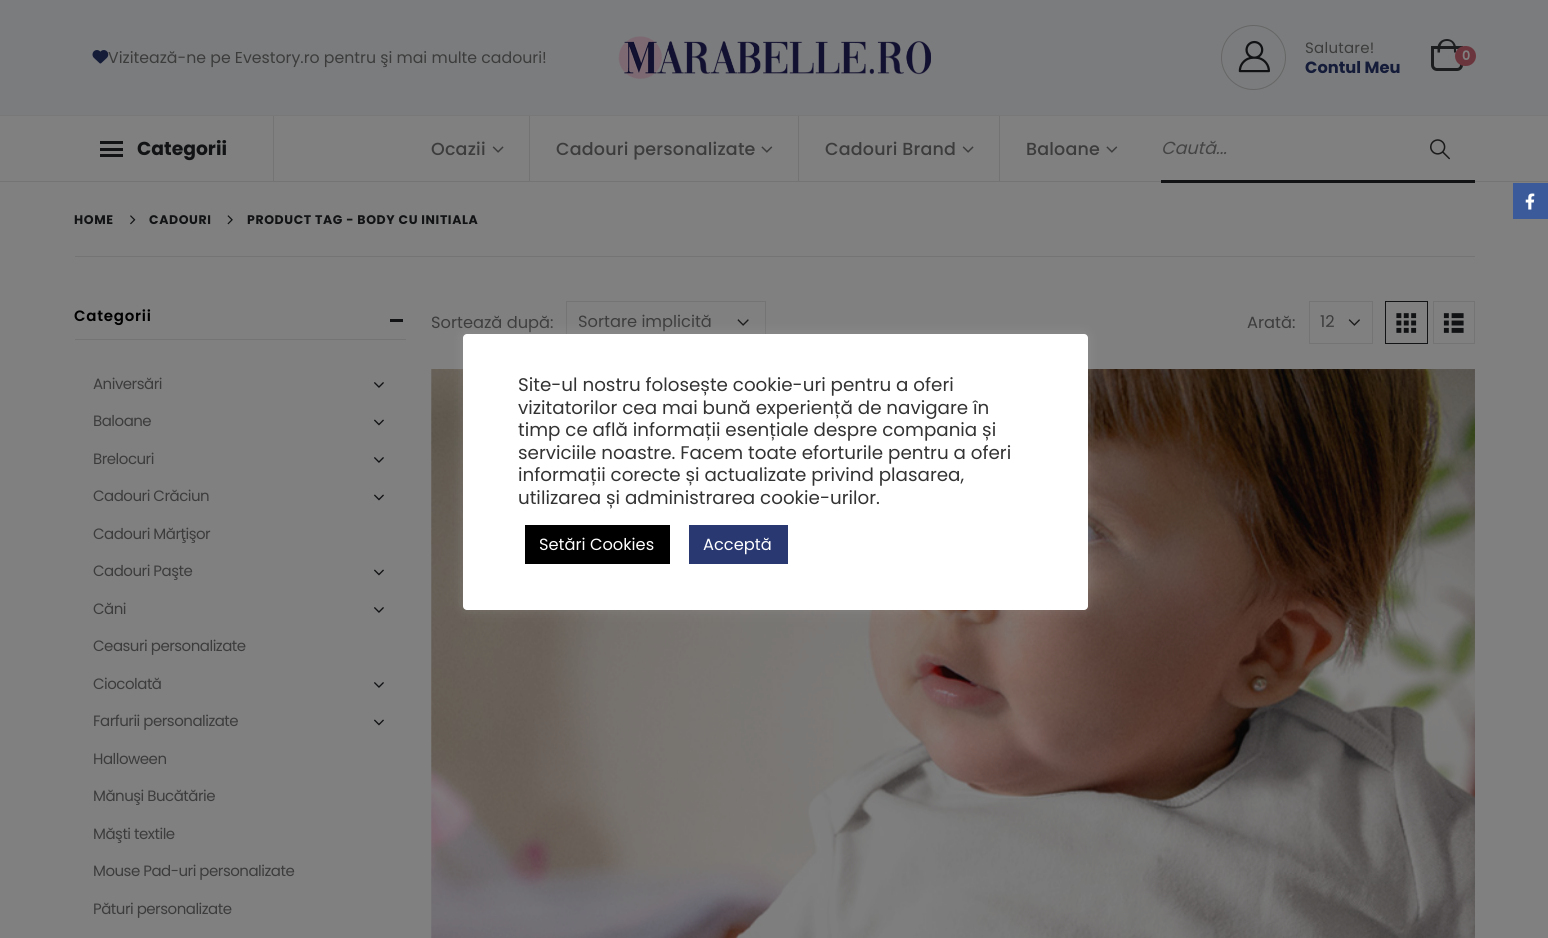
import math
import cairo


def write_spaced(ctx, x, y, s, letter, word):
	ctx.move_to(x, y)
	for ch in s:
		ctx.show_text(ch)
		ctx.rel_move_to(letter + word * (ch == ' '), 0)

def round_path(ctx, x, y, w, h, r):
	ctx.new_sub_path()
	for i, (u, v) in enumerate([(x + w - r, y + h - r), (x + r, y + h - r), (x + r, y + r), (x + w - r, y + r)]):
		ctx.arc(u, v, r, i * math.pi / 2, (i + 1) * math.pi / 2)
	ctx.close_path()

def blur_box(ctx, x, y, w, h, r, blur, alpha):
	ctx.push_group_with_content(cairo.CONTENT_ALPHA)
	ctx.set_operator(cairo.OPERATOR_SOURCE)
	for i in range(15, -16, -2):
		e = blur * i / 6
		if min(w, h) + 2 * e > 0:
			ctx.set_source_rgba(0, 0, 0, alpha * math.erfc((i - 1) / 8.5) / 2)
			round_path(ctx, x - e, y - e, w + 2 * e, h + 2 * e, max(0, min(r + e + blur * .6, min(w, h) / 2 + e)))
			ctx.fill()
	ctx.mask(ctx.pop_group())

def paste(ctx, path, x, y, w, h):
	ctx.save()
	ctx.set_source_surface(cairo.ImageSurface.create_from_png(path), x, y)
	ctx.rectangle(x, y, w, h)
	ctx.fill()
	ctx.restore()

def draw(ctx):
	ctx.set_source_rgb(0.502, 0.502, 0.502)
	ctx.paint()
	ctx.set_source_rgb(0.482, 0.486, 0.49)
	ctx.rectangle(0, 0, 1548, 115)
	ctx.fill()
	paste(ctx, 'media/1.png', 92, 50, 17, 14)
	ctx.select_font_face('Poppins')
	ctx.set_font_size(15.75)
	ctx.set_source_rgb(0.235, 0.235, 0.235)
	ctx.move_to(108, 63)
	ctx.show_text('Vizitează-ne pe Evestory.ro pentru şi mai multe cadouri!')
	paste(ctx, 'media/2.png', 618, 36, 313, 43)
	ctx.arc(1253.5, 57.5, 32, 0, 2 * math.pi)
	ctx.set_source_rgb(0.4, 0.4, 0.4)
	ctx.set_line_width(1)
	ctx.stroke()
	paste(ctx, 'media/3.png', 1238, 40, 32, 33)
	ctx.set_font_size(15)
	ctx.set_source_rgb(0.235, 0.235, 0.235)
	write_spaced(ctx, 1305, 53, 'Salutare!', 0.25, 0)
	ctx.select_font_face('Poppins', cairo.FONT_SLANT_NORMAL, cairo.FONT_WEIGHT_BOLD)
	ctx.set_font_size(16.25)
	ctx.set_source_rgb(0.082, 0.11, 0.224)
	ctx.move_to(1305, 73)
	ctx.show_text('Contul Meu')
	ctx.new_path()
	ctx.move_to(1432.5, 47.5)
	ctx.line_to(1461.5, 47.5)
	ctx.line_to(1461.5, 65)
	ctx.curve_to(1461.5, 67.5, 1459.5, 69.5, 1457, 69.5)
	ctx.line_to(1437, 69.5)
	ctx.curve_to(1434.5, 69.5, 1432.5, 67.5, 1432.5, 65)
	ctx.close_path()
	ctx.set_source_rgb(0.11, 0.114, 0.122)
	ctx.set_line_width(3)
	ctx.stroke()
	ctx.set_fill_rule(cairo.FILL_RULE_EVEN_ODD)
	ctx.new_path()
	ctx.move_to(1447, 39)
	ctx.curve_to(1452, 39, 1456, 43, 1456, 48)
	ctx.line_to(1456, 52.5)
	ctx.line_to(1437.5, 52.5)
	ctx.line_to(1437.5, 48)
	ctx.curve_to(1437.5, 43, 1441.5, 39, 1447, 39)
	ctx.close_path()
	ctx.move_to(1447, 41)
	ctx.curve_to(1454, 41, 1454, 47.5, 1454, 52.5)
	ctx.line_to(1440, 52.5)
	ctx.curve_to(1440, 47.5, 1440, 41, 1447, 41)
	ctx.close_path()
	ctx.fill()
	ctx.set_source_rgb(0.42, 0.208, 0.239)
	round_path(ctx, 1455, 46, 21, 20, 10)
	ctx.fill()
	ctx.select_font_face('Poppins SemiBold')
	ctx.set_font_size(13)
	ctx.set_source_rgb(0.502, 0.502, 0.502)
	ctx.move_to(1462, 60)
	ctx.show_text('0')
	ctx.set_source_rgb(0.471, 0.471, 0.471)
	ctx.rectangle(0, 115, 1548, 1)
	ctx.fill()
	ctx.set_source_rgb(0.455, 0.455, 0.455)
	ctx.rectangle(0, 181, 1548, 1)
	ctx.rectangle(273, 116, 1, 65)
	ctx.fill()
	ctx.set_source_rgb(0.067, 0.075, 0.082)
	ctx.rectangle(100, 148, 23, 3)
	ctx.rectangle(100, 141, 23, 3)
	ctx.rectangle(100, 154, 23, 3)
	ctx.fill()
	ctx.select_font_face('Poppins', cairo.FONT_SLANT_NORMAL, cairo.FONT_WEIGHT_BOLD)
	ctx.set_font_size(18.75)
	ctx.move_to(137, 155)
	ctx.show_text('Categorii')
	ctx.set_source_rgb(0.451, 0.451, 0.451)
	ctx.rectangle(529, 116, 1, 65)
	ctx.fill()
	ctx.select_font_face('Poppins Medium')
	ctx.set_font_size(17.5)
	ctx.set_source_rgb(0.235, 0.235, 0.235)
	write_spaced(ctx, 431, 155, 'Ocazii', 0.2, 0)
	paste(ctx, 'media/4.png', 492, 146, 12, 7)
	ctx.set_source_rgb(0.451, 0.451, 0.451)
	ctx.rectangle(798, 116, 1, 65)
	ctx.fill()
	ctx.set_source_rgb(0.235, 0.235, 0.235)
	write_spaced(ctx, 556, 155, 'Cadouri personalizate', 0.2, 0)
	paste(ctx, 'media/5.png', 761, 146, 12, 7)
	ctx.set_source_rgb(0.451, 0.451, 0.451)
	ctx.rectangle(999, 116, 1, 65)
	ctx.fill()
	ctx.set_source_rgb(0.235, 0.235, 0.235)
	write_spaced(ctx, 825, 155, 'Cadouri Brand', 0.2, 0)
	paste(ctx, 'media/4.png', 962, 146, 12, 7)
	write_spaced(ctx, 1026, 155, 'Baloane', 0.2, 0)
	paste(ctx, 'media/5.png', 1106, 146, 12, 7)
	ctx.set_source_rgb(0.067, 0.075, 0.082)
	ctx.rectangle(1161, 180, 314, 3)
	ctx.fill()
	ctx.select_font_face('Poppins', cairo.FONT_SLANT_ITALIC)
	ctx.set_source_rgb(0.267, 0.267, 0.267)
	ctx.move_to(1161, 154)
	ctx.show_text('Caută...')
	paste(ctx, 'media/6.png', 1430, 139, 20, 21)
	ctx.select_font_face('Poppins', cairo.FONT_SLANT_NORMAL, cairo.FONT_WEIGHT_BOLD)
	ctx.set_font_size(12.5)
	ctx.set_source_rgb(0.067, 0.075, 0.082)
	write_spaced(ctx, 74, 224, 'HOME', 0.6, 0)
	paste(ctx, 'media/7.png', 130, 215, 6, 10)
	write_spaced(ctx, 149, 224, 'CADOURI', 0.6, 0)
	paste(ctx, 'media/8.png', 227, 215, 6, 10)
	write_spaced(ctx, 247, 224, 'PRODUCT TAG - BODY CU INITIALA', 0.6, 0)
	ctx.set_source_rgb(0.455, 0.455, 0.455)
	ctx.rectangle(75, 256, 1400, 1)
	ctx.fill()
	ctx.rectangle(75, 339, 331, 1)
	ctx.fill()
	ctx.select_font_face('Poppins SemiBold')
	ctx.set_font_size(15)
	ctx.set_source_rgb(0, 0, 0)
	write_spaced(ctx, 74, 321, 'Categorii', 0.75, 0)
	ctx.set_source_rgb(0.067, 0.075, 0.082)
	ctx.rectangle(390, 319, 13, 3)
	ctx.fill()
	ctx.select_font_face('Poppins')
	ctx.set_source_rgb(0.235, 0.235, 0.235)
	write_spaced(ctx, 93, 389, 'Aniversări', -0.5, 0)
	paste(ctx, 'media/9.png', 374, 382, 10, 6)
	write_spaced(ctx, 93, 426, 'Baloane', -0.5, 0)
	paste(ctx, 'media/10.png', 374, 419, 10, 7)
	write_spaced(ctx, 93, 464, 'Brelocuri', -0.5, 0)
	paste(ctx, 'media/9.png', 374, 457, 10, 6)
	write_spaced(ctx, 93, 501, 'Cadouri Crăciun', -0.5, 0)
	paste(ctx, 'media/10.png', 374, 494, 10, 7)
	write_spaced(ctx, 93, 539, 'Cadouri Mărţişor', -0.5, 0)
	write_spaced(ctx, 93, 576, 'Cadouri Paşte', -0.5, 0)
	paste(ctx, 'media/10.png', 374, 569, 10, 7)
	write_spaced(ctx, 93, 614, 'Căni', -0.5, 0)
	paste(ctx, 'media/9.png', 374, 607, 10, 6)
	write_spaced(ctx, 93, 651, 'Ceasuri personalizate', -0.5, 0)
	write_spaced(ctx, 93, 689, 'Ciocolată', -0.5, 0)
	paste(ctx, 'media/9.png', 374, 682, 10, 6)
	write_spaced(ctx, 93, 726, 'Farfurii personalizate', -0.5, 0)
	paste(ctx, 'media/10.png', 374, 719, 10, 7)
	for x, y, s in [
		(93, 764, 'Halloween'),
		(93, 801, 'Mănuşi Bucătărie'),
		(93, 839, 'Măşti textile'),
		(93, 876, 'Mouse Pad-uri personalizate'),
		(93, 914, 'Pături personalizate'),
	]:
		write_spaced(ctx, x, y, s, -0.5, 0)
	ctx.set_font_size(16.25)
	ctx.move_to(431, 328)
	ctx.show_text('Sortează după:')
	paste(ctx, 'media/11.png', 737, 319, 12, 7)
	ctx.rectangle(566.5, 301.5, 199, 42)
	ctx.set_source_rgb(0.455, 0.455, 0.455)
	ctx.set_line_width(1)
	ctx.stroke()
	ctx.set_source_rgb(0.235, 0.235, 0.235)
	ctx.move_to(578, 327)
	ctx.show_text('Sortare implicită')
	ctx.move_to(1247, 328)
	ctx.show_text('Arată:')
	paste(ctx, 'media/12.png', 1348, 319, 12, 7)
	ctx.rectangle(1309.5, 301.5, 63, 42)
	ctx.set_source_rgb(0.455, 0.455, 0.455)
	ctx.stroke()
	ctx.set_source_rgb(0.235, 0.235, 0.235)
	ctx.move_to(1320, 327)
	ctx.show_text('12')
	ctx.rectangle(1385.5, 301.5, 42, 42)
	ctx.set_source_rgb(0.067, 0.075, 0.082)
	ctx.stroke()
	paste(ctx, 'media/13.png', 1396, 313, 21, 20)
	ctx.rectangle(1433.5, 301.5, 41, 42)
	ctx.set_source_rgb(0.455, 0.455, 0.455)
	ctx.stroke()
	paste(ctx, 'media/14.png', 1443, 313, 21, 20)
	paste(ctx, 'media/15.png', 431, 369, 1044, 569)
	ctx.set_source_rgb(0.231, 0.353, 0.604)
	ctx.rectangle(1513, 183, 35, 36)
	ctx.fill()
	paste(ctx, 'media/16.png', 1525, 193, 10, 17)
	ctx.set_source_rgb(0.675, 0.671, 0.671)
	blur_box(ctx, 463, 333, 625, 276, 4, 6, 0.3)
	ctx.set_source_rgb(1, 1, 1)
	round_path(ctx, 463, 334, 625, 276, 4)
	ctx.fill()
	ctx.set_font_size(18.3)
	ctx.set_source_rgb(0.2, 0.2, 0.2)
	for x, y, s in [
		(518, 391, 'Site-ul nostru folosește cookie-uri pentru a oferi'),
		(518, 414, 'vizitatorilor cea mai bună experiență de navigare în'),
		(518, 436, 'timp ce află informații esențiale despre compania și'),
		(518, 459, 'serviciile noastre. Facem toate eforturile pentru a oferi'),
		(518, 481, 'informații corecte și actualizate privind plasarea,'),
		(518, 504, 'utilizarea și administrarea cookie-urilor.'),
	]:
		ctx.move_to(x, y)
		ctx.show_text(s)
	ctx.set_source_rgb(0, 0, 0)
	ctx.rectangle(525, 525, 145, 39)
	ctx.fill()
	ctx.set_font_size(16.25)
	ctx.set_source_rgb(1, 1, 1)
	ctx.move_to(539, 550)
	ctx.show_text('Setări Cookies')
	ctx.set_source_rgb(0.161, 0.22, 0.443)
	ctx.rectangle(689, 525, 99, 39)
	ctx.fill()
	ctx.set_source_rgb(1, 1, 1)
	ctx.move_to(703, 550)
	ctx.show_text('Acceptă')


surface = cairo.ImageSurface(cairo.FORMAT_RGB24, 1548, 938)
ctx = cairo.Context(surface)
options = cairo.FontOptions()
options.set_hint_metrics(cairo.HINT_METRICS_OFF)
options.set_hint_style(cairo.HINT_STYLE_NONE)
ctx.set_font_options(options)
ctx.set_miter_limit(4)
draw(ctx)
surface.write_to_png('image.png')
